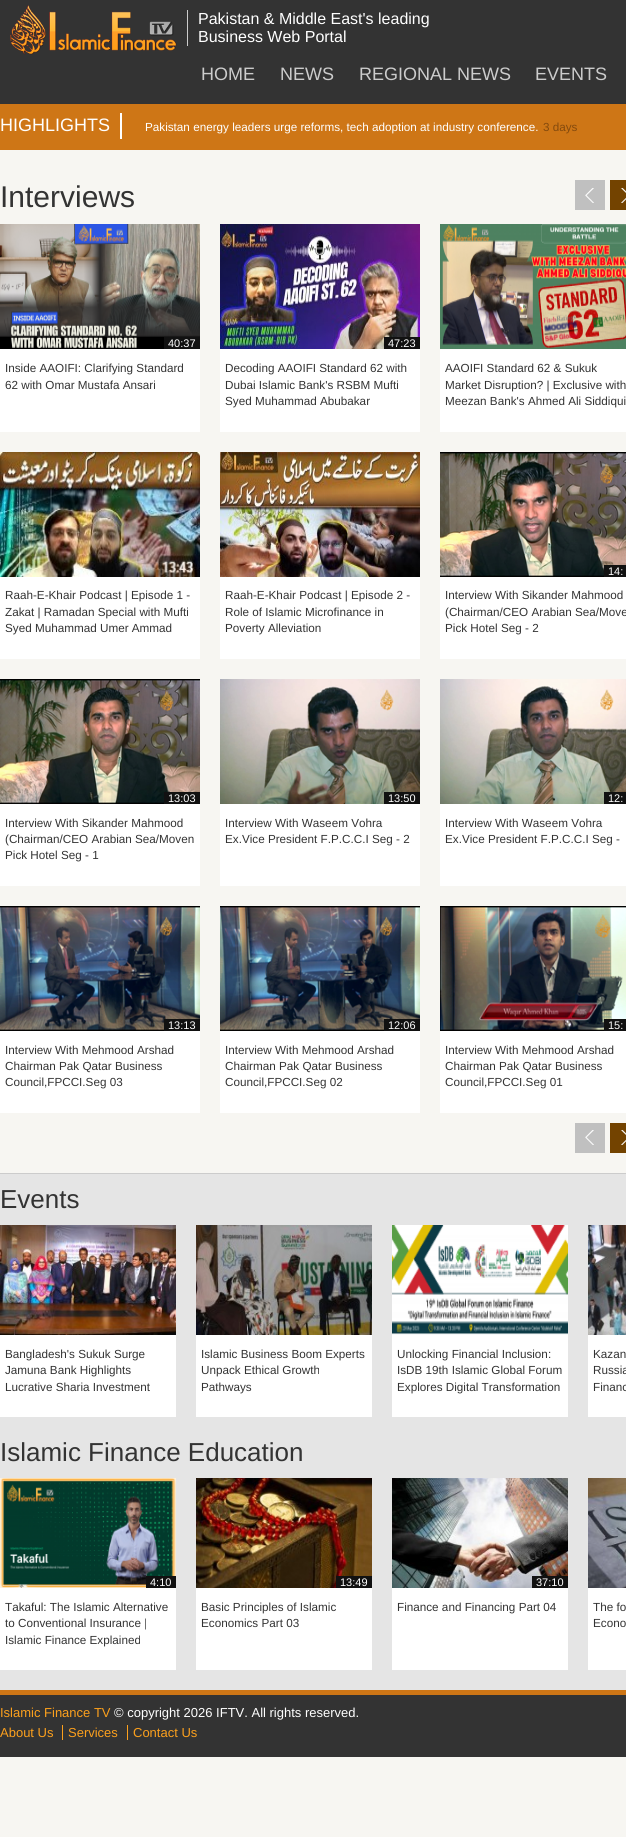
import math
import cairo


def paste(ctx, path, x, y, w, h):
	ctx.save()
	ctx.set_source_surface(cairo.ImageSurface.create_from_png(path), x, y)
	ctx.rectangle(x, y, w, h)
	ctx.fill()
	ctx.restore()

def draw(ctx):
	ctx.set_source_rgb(0.965, 0.961, 0.949)
	ctx.paint()
	ctx.set_source_rgb(0.2, 0.2, 0.2)
	ctx.rectangle(0, 0, 626, 104)
	ctx.fill()
	paste(ctx, 'media/1.png', 10, 5, 167, 50)
	ctx.set_source_rgb(0.8, 0.8, 0.8)
	ctx.rectangle(187, 10, 1, 36)
	ctx.fill()
	ctx.select_font_face('Liberation Sans')
	ctx.set_font_size(16)
	ctx.set_source_rgb(1, 1, 1)
	ctx.move_to(198, 24)
	ctx.show_text('Pakistan & Middle East\'s leading')
	ctx.move_to(198, 42)
	ctx.show_text('Business Web Portal')
	ctx.set_font_size(18)
	ctx.set_source_rgb(0.8, 0.8, 0.8)
	for x, y, s in [
		(201, 80, 'HOME'),
		(280, 80, 'NEWS'),
		(359, 80, 'REGIONAL NEWS'),
		(535, 80, 'EVENTS'),
	]:
		ctx.move_to(x, y)
		ctx.show_text(s)
	ctx.set_source_rgb(0.808, 0.463, 0.086)
	ctx.rectangle(0, 104, 626, 46)
	ctx.fill()
	ctx.set_source_rgb(1, 1, 1)
	ctx.rectangle(120, 113, 2, 26)
	ctx.fill()
	ctx.move_to(0, 131)
	ctx.show_text('HIGHLIGHTS')
	ctx.set_font_size(11.7)
	ctx.move_to(145, 131)
	ctx.show_text('Pakistan energy leaders urge reforms, tech adoption at industry conference.')
	ctx.set_source_rgb(0.518, 0.29, 0.051)
	ctx.move_to(543, 131)
	ctx.show_text('3 days')
	ctx.set_font_size(30)
	ctx.set_source_rgb(0.2, 0.2, 0.2)
	ctx.move_to(0, 207)
	ctx.show_text('Interviews')
	ctx.set_source_rgb(0.753, 0.753, 0.753)
	ctx.rectangle(575, 180, 30, 30)
	ctx.fill()
	paste(ctx, 'media/2.png', 585, 188, 9, 15)
	ctx.set_source_rgb(0.451, 0.263, 0)
	ctx.rectangle(610, 180, 16, 30)
	ctx.fill()
	paste(ctx, 'media/3.png', 621, 188, 5, 15)
	ctx.set_source_rgb(1, 1, 1)
	ctx.rectangle(0, 349, 200, 83)
	ctx.fill()
	paste(ctx, 'media/4.png', 0, 224, 200, 125)
	ctx.set_source_rgb(0.067, 0.067, 0.067)
	ctx.rectangle(164, 337, 36, 12)
	ctx.fill()
	ctx.set_font_size(11)
	ctx.set_source_rgb(1, 1, 1)
	ctx.move_to(168, 347)
	ctx.show_text('40:37')
	ctx.set_font_size(11.7)
	ctx.set_source_rgb(0.2, 0.2, 0.2)
	ctx.move_to(5, 372)
	ctx.show_text('Inside AAOIFI: Clarifying Standard')
	ctx.move_to(5, 389)
	ctx.show_text('62 with Omar Mustafa Ansari')
	ctx.set_source_rgb(1, 1, 1)
	ctx.rectangle(220, 349, 200, 83)
	ctx.fill()
	paste(ctx, 'media/5.png', 220, 224, 200, 125)
	ctx.set_source_rgb(0.067, 0.067, 0.067)
	ctx.rectangle(384, 337, 36, 12)
	ctx.fill()
	ctx.set_font_size(11)
	ctx.set_source_rgb(1, 1, 1)
	ctx.move_to(388, 347)
	ctx.show_text('47:23')
	ctx.set_font_size(11.7)
	ctx.set_source_rgb(0.2, 0.2, 0.2)
	for x, y, s in [
		(225, 372, 'Decoding AAOIFI Standard 62 with'),
		(225, 389, 'Dubai Islamic Bank\'s RSBM Mufti'),
		(225, 405, 'Syed Muhammad Abubakar'),
	]:
		ctx.move_to(x, y)
		ctx.show_text(s)
	ctx.set_source_rgb(1, 1, 1)
	ctx.rectangle(440, 349, 186, 83)
	ctx.fill()
	paste(ctx, 'media/6.png', 440, 224, 186, 125)
	ctx.set_source_rgb(0.2, 0.2, 0.2)
	for x, y, s in [
		(445, 372, 'AAOIFI Standard 62 & Sukuk'),
		(445, 389, 'Market Disruption? | Exclusive with'),
		(445, 405, 'Meezan Bank\'s Ahmed Ali Siddiqui'),
	]:
		ctx.move_to(x, y)
		ctx.show_text(s)
	ctx.set_source_rgb(1, 1, 1)
	ctx.rectangle(0, 577, 200, 82)
	ctx.fill()
	paste(ctx, 'media/7.png', 0, 452, 200, 125)
	ctx.set_source_rgb(0.2, 0.2, 0.2)
	for x, y, s in [
		(5, 599, 'Raah-E-Khair Podcast | Episode 1 -'),
		(5, 616, 'Zakat | Ramadan Special with Mufti'),
		(5, 632, 'Syed Muhammad Umer Ammad'),
	]:
		ctx.move_to(x, y)
		ctx.show_text(s)
	ctx.set_source_rgb(1, 1, 1)
	ctx.rectangle(220, 577, 200, 82)
	ctx.fill()
	paste(ctx, 'media/8.png', 220, 452, 200, 125)
	ctx.set_source_rgb(0.2, 0.2, 0.2)
	for x, y, s in [
		(225, 599, 'Raah-E-Khair Podcast | Episode 2 -'),
		(225, 616, 'Role of Islamic Microfinance in'),
		(225, 632, 'Poverty Alleviation'),
	]:
		ctx.move_to(x, y)
		ctx.show_text(s)
	ctx.set_source_rgb(1, 1, 1)
	ctx.rectangle(440, 577, 186, 82)
	ctx.fill()
	paste(ctx, 'media/9.png', 440, 452, 186, 125)
	ctx.set_source_rgb(0.067, 0.067, 0.067)
	ctx.rectangle(604, 565, 22, 12)
	ctx.fill()
	ctx.set_font_size(11)
	ctx.set_source_rgb(1, 1, 1)
	ctx.move_to(608, 575)
	ctx.show_text('14:')
	ctx.set_font_size(11.7)
	ctx.set_source_rgb(0.2, 0.2, 0.2)
	for x, y, s in [
		(445, 599, 'Interview With Sikander Mahmood'),
		(445, 616, '(Chairman/CEO Arabian Sea/Move'),
		(445, 632, 'Pick Hotel Seg - 2'),
	]:
		ctx.move_to(x, y)
		ctx.show_text(s)
	ctx.set_source_rgb(1, 1, 1)
	ctx.rectangle(0, 804, 200, 82)
	ctx.fill()
	paste(ctx, 'media/10.png', 0, 679, 200, 125)
	ctx.set_source_rgb(0.067, 0.067, 0.067)
	ctx.rectangle(164, 792, 36, 12)
	ctx.fill()
	ctx.set_font_size(11)
	ctx.set_source_rgb(1, 1, 1)
	ctx.move_to(168, 802)
	ctx.show_text('13:03')
	ctx.set_font_size(11.7)
	ctx.set_source_rgb(0.2, 0.2, 0.2)
	for x, y, s in [
		(5, 827, 'Interview With Sikander Mahmood'),
		(5, 843, '(Chairman/CEO Arabian Sea/Moven'),
		(5, 859, 'Pick Hotel Seg - 1'),
	]:
		ctx.move_to(x, y)
		ctx.show_text(s)
	ctx.set_source_rgb(1, 1, 1)
	ctx.rectangle(220, 804, 200, 82)
	ctx.fill()
	paste(ctx, 'media/11.png', 220, 679, 200, 125)
	ctx.set_source_rgb(0.067, 0.067, 0.067)
	ctx.rectangle(384, 792, 36, 12)
	ctx.fill()
	ctx.set_font_size(11)
	ctx.set_source_rgb(1, 1, 1)
	ctx.move_to(388, 802)
	ctx.show_text('13:50')
	ctx.set_font_size(11.7)
	ctx.set_source_rgb(0.2, 0.2, 0.2)
	ctx.move_to(225, 827)
	ctx.show_text('Interview With Waseem Vohra')
	ctx.move_to(225, 843)
	ctx.show_text('Ex.Vice President F.P.C.C.I Seg - 2')
	ctx.set_source_rgb(1, 1, 1)
	ctx.rectangle(440, 804, 186, 82)
	ctx.fill()
	paste(ctx, 'media/12.png', 440, 679, 186, 125)
	ctx.set_source_rgb(0.067, 0.067, 0.067)
	ctx.rectangle(604, 792, 22, 12)
	ctx.fill()
	ctx.set_font_size(11)
	ctx.set_source_rgb(1, 1, 1)
	ctx.move_to(608, 802)
	ctx.show_text('12:')
	ctx.set_font_size(11.7)
	ctx.set_source_rgb(0.2, 0.2, 0.2)
	ctx.move_to(445, 827)
	ctx.show_text('Interview With Waseem Vohra')
	ctx.move_to(445, 843)
	ctx.show_text('Ex.Vice President F.P.C.C.I Seg -')
	ctx.set_source_rgb(1, 1, 1)
	ctx.rectangle(0, 1031, 200, 82)
	ctx.fill()
	paste(ctx, 'media/13.png', 0, 906, 200, 125)
	ctx.set_source_rgb(0.067, 0.067, 0.067)
	ctx.rectangle(164, 1019, 36, 12)
	ctx.fill()
	ctx.set_font_size(11)
	ctx.set_source_rgb(1, 1, 1)
	ctx.move_to(168, 1029)
	ctx.show_text('13:13')
	ctx.set_font_size(11.7)
	ctx.set_source_rgb(0.2, 0.2, 0.2)
	for x, y, s in [
		(5, 1054, 'Interview With Mehmood Arshad'),
		(5, 1070, 'Chairman Pak Qatar Business'),
		(5, 1086, 'Council,FPCCI.Seg 03'),
	]:
		ctx.move_to(x, y)
		ctx.show_text(s)
	ctx.set_source_rgb(1, 1, 1)
	ctx.rectangle(220, 1031, 200, 82)
	ctx.fill()
	paste(ctx, 'media/14.png', 220, 906, 200, 125)
	ctx.set_source_rgb(0.067, 0.067, 0.067)
	ctx.rectangle(384, 1019, 36, 12)
	ctx.fill()
	ctx.set_font_size(11)
	ctx.set_source_rgb(1, 1, 1)
	ctx.move_to(388, 1029)
	ctx.show_text('12:06')
	ctx.set_font_size(11.7)
	ctx.set_source_rgb(0.2, 0.2, 0.2)
	for x, y, s in [
		(225, 1054, 'Interview With Mehmood Arshad'),
		(225, 1070, 'Chairman Pak Qatar Business'),
		(225, 1086, 'Council,FPCCI.Seg 02'),
	]:
		ctx.move_to(x, y)
		ctx.show_text(s)
	ctx.set_source_rgb(1, 1, 1)
	ctx.rectangle(440, 1031, 186, 82)
	ctx.fill()
	paste(ctx, 'media/15.png', 440, 906, 186, 125)
	ctx.set_source_rgb(0.067, 0.067, 0.067)
	ctx.rectangle(604, 1019, 22, 12)
	ctx.fill()
	ctx.set_font_size(11)
	ctx.set_source_rgb(1, 1, 1)
	ctx.move_to(608, 1029)
	ctx.show_text('15:')
	ctx.set_font_size(11.7)
	ctx.set_source_rgb(0.2, 0.2, 0.2)
	for x, y, s in [
		(445, 1054, 'Interview With Mehmood Arshad'),
		(445, 1070, 'Chairman Pak Qatar Business'),
		(445, 1086, 'Council,FPCCI.Seg 01'),
	]:
		ctx.move_to(x, y)
		ctx.show_text(s)
	ctx.set_source_rgb(0.753, 0.753, 0.753)
	ctx.rectangle(575, 1123, 30, 30)
	ctx.fill()
	paste(ctx, 'media/2.png', 585, 1130, 9, 15)
	ctx.set_source_rgb(0.451, 0.263, 0)
	ctx.rectangle(610, 1123, 16, 30)
	ctx.fill()
	paste(ctx, 'media/3.png', 621, 1130, 5, 15)
	ctx.set_source_rgb(0.898, 0.898, 0.898)
	ctx.rectangle(0, 1174, 626, 516)
	ctx.fill()
	ctx.set_source_rgb(0.8, 0.8, 0.8)
	ctx.rectangle(0, 1173, 626, 1)
	ctx.fill()
	ctx.set_font_size(26)
	ctx.set_source_rgb(0.2, 0.2, 0.2)
	ctx.move_to(0, 1208)
	ctx.show_text('Events')
	ctx.set_source_rgb(1, 1, 1)
	ctx.rectangle(0, 1335, 176, 82)
	ctx.fill()
	paste(ctx, 'media/16.png', 0, 1225, 176, 110)
	ctx.set_font_size(11.7)
	ctx.set_source_rgb(0.2, 0.2, 0.2)
	for x, y, s in [
		(5, 1358, 'Bangladesh\'s Sukuk Surge'),
		(5, 1374, 'Jamuna Bank Highlights'),
		(5, 1391, 'Lucrative Sharia Investment'),
	]:
		ctx.move_to(x, y)
		ctx.show_text(s)
	ctx.set_source_rgb(1, 1, 1)
	ctx.rectangle(196, 1335, 176, 82)
	ctx.fill()
	paste(ctx, 'media/17.png', 196, 1225, 176, 110)
	ctx.set_source_rgb(0.2, 0.2, 0.2)
	for x, y, s in [
		(201, 1358, 'Islamic Business Boom Experts'),
		(201, 1374, 'Unpack Ethical Growth'),
		(201, 1391, 'Pathways'),
	]:
		ctx.move_to(x, y)
		ctx.show_text(s)
	ctx.set_source_rgb(1, 1, 1)
	ctx.rectangle(392, 1335, 176, 82)
	ctx.fill()
	paste(ctx, 'media/18.png', 392, 1225, 176, 110)
	ctx.set_source_rgb(0.2, 0.2, 0.2)
	for x, y, s in [
		(397, 1358, 'Unlocking Financial Inclusion:'),
		(397, 1374, 'IsDB 19th Islamic Global Forum'),
		(397, 1391, 'Explores Digital Transformation'),
	]:
		ctx.move_to(x, y)
		ctx.show_text(s)
	ctx.set_source_rgb(1, 1, 1)
	ctx.rectangle(588, 1335, 38, 82)
	ctx.fill()
	paste(ctx, 'media/19.png', 588, 1225, 38, 110)
	ctx.set_source_rgb(0.2, 0.2, 0.2)
	for x, y, s in [
		(593, 1358, 'Kazan'),
		(593, 1374, 'Russia'),
		(593, 1391, 'Financ'),
	]:
		ctx.move_to(x, y)
		ctx.show_text(s)
	ctx.set_font_size(26)
	ctx.move_to(0, 1461)
	ctx.show_text('Islamic Finance Education')
	ctx.set_source_rgb(1, 1, 1)
	ctx.rectangle(0, 1588, 176, 82)
	ctx.fill()
	paste(ctx, 'media/20.png', 0, 1478, 176, 110)
	ctx.set_source_rgb(0.067, 0.067, 0.067)
	ctx.rectangle(146, 1576, 30, 12)
	ctx.fill()
	ctx.set_font_size(11)
	ctx.set_source_rgb(1, 1, 1)
	ctx.move_to(150, 1586)
	ctx.show_text('4:10')
	ctx.set_font_size(11.7)
	ctx.set_source_rgb(0.2, 0.2, 0.2)
	for x, y, s in [
		(5, 1611, 'Takaful: The Islamic Alternative'),
		(5, 1627, 'to Conventional Insurance |'),
		(5, 1644, 'Islamic Finance Explained'),
	]:
		ctx.move_to(x, y)
		ctx.show_text(s)
	ctx.set_source_rgb(1, 1, 1)
	ctx.rectangle(196, 1588, 176, 82)
	ctx.fill()
	paste(ctx, 'media/21.png', 196, 1478, 176, 110)
	ctx.set_source_rgb(0.067, 0.067, 0.067)
	ctx.rectangle(336, 1576, 36, 12)
	ctx.fill()
	ctx.set_font_size(11)
	ctx.set_source_rgb(1, 1, 1)
	ctx.move_to(340, 1586)
	ctx.show_text('13:49')
	ctx.set_font_size(11.7)
	ctx.set_source_rgb(0.2, 0.2, 0.2)
	ctx.move_to(201, 1611)
	ctx.show_text('Basic Principles of Islamic')
	ctx.move_to(201, 1627)
	ctx.show_text('Economics Part 03')
	ctx.set_source_rgb(1, 1, 1)
	ctx.rectangle(392, 1588, 176, 82)
	ctx.fill()
	paste(ctx, 'media/22.png', 392, 1478, 176, 110)
	ctx.set_source_rgb(0.067, 0.067, 0.067)
	ctx.rectangle(532, 1576, 36, 12)
	ctx.fill()
	ctx.set_font_size(11)
	ctx.set_source_rgb(1, 1, 1)
	ctx.move_to(536, 1586)
	ctx.show_text('37:10')
	ctx.set_font_size(11.7)
	ctx.set_source_rgb(0.2, 0.2, 0.2)
	ctx.move_to(397, 1611)
	ctx.show_text('Finance and Financing Part 04')
	ctx.set_source_rgb(1, 1, 1)
	ctx.rectangle(588, 1588, 38, 82)
	ctx.fill()
	paste(ctx, 'media/23.png', 588, 1478, 38, 110)
	ctx.set_source_rgb(0.2, 0.2, 0.2)
	ctx.move_to(593, 1611)
	ctx.show_text('The fo')
	ctx.move_to(593, 1627)
	ctx.show_text('Econo')
	ctx.rectangle(0, 1695, 626, 62)
	ctx.fill()
	ctx.set_source_rgb(0.808, 0.463, 0.086)
	ctx.rectangle(0, 1690, 626, 5)
	ctx.fill()
	ctx.set_font_size(13)
	ctx.set_source_rgb(0.988, 0.627, 0.114)
	ctx.move_to(0, 1717)
	ctx.show_text('Islamic Finance TV')
	ctx.set_source_rgb(1, 1, 1)
	ctx.move_to(114, 1717)
	ctx.show_text('© copyright 2026 IFTV. All rights reserved.')
	ctx.set_source_rgb(0.988, 0.627, 0.114)
	ctx.move_to(0, 1737)
	ctx.show_text('About Us')
	ctx.move_to(68, 1737)
	ctx.show_text('Services')
	ctx.rectangle(62, 1725, 1, 15)
	ctx.fill()
	ctx.move_to(133, 1737)
	ctx.show_text('Contact Us')
	ctx.rectangle(127, 1725, 1, 15)
	ctx.fill()


surface = cairo.ImageSurface(cairo.FORMAT_RGB24, 626, 1837)
ctx = cairo.Context(surface)
options = cairo.FontOptions()
options.set_hint_metrics(cairo.HINT_METRICS_OFF)
options.set_hint_style(cairo.HINT_STYLE_NONE)
ctx.set_font_options(options)
ctx.set_miter_limit(4)
draw(ctx)
surface.write_to_png('image.png')
